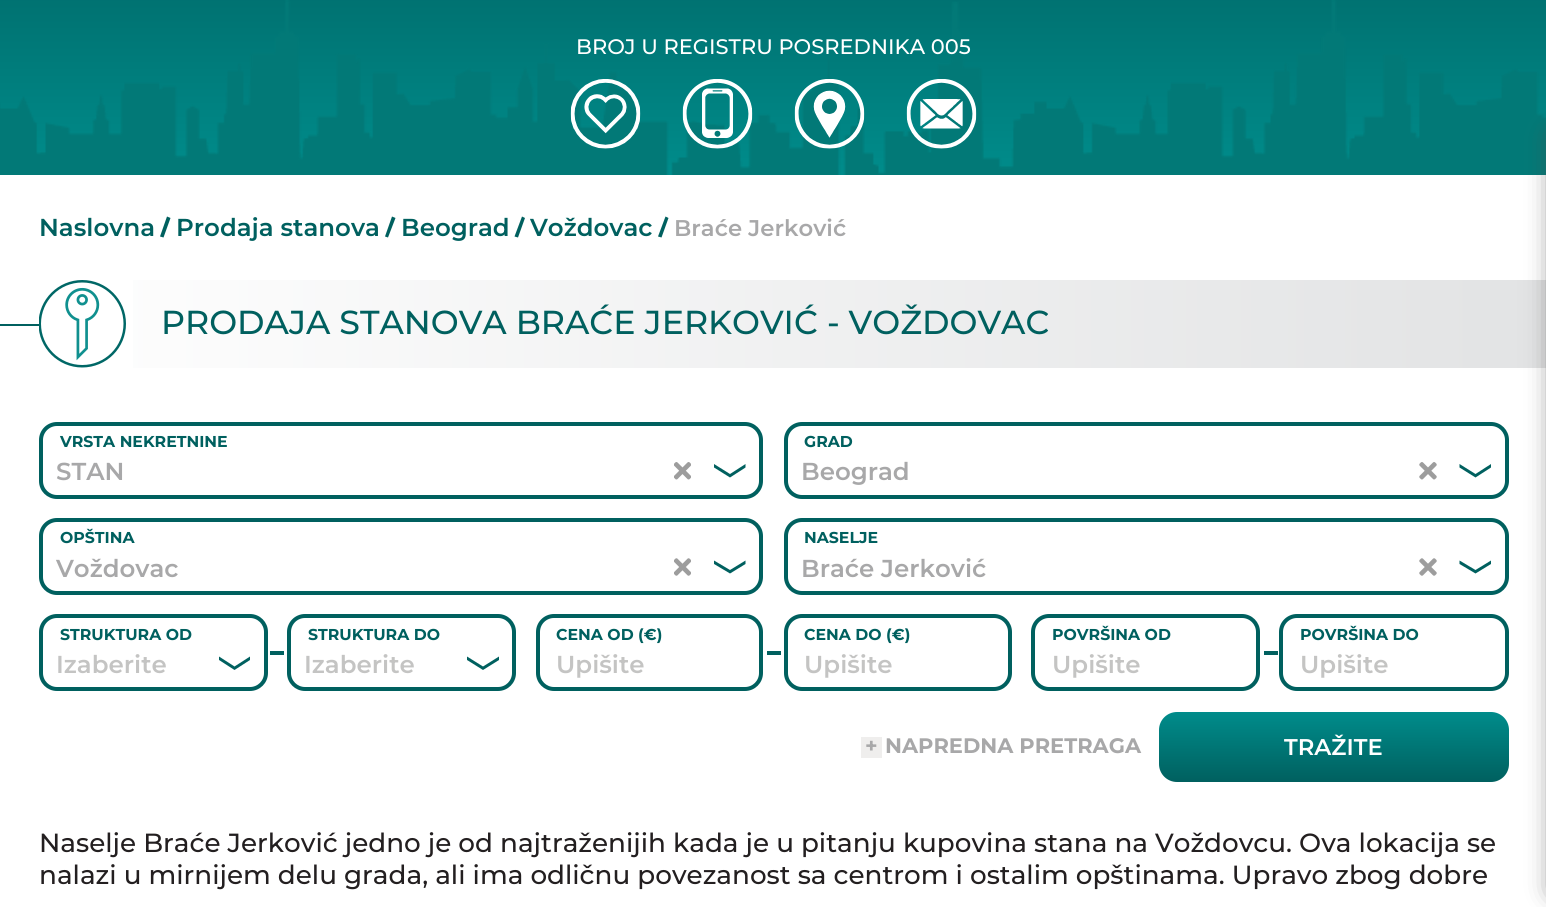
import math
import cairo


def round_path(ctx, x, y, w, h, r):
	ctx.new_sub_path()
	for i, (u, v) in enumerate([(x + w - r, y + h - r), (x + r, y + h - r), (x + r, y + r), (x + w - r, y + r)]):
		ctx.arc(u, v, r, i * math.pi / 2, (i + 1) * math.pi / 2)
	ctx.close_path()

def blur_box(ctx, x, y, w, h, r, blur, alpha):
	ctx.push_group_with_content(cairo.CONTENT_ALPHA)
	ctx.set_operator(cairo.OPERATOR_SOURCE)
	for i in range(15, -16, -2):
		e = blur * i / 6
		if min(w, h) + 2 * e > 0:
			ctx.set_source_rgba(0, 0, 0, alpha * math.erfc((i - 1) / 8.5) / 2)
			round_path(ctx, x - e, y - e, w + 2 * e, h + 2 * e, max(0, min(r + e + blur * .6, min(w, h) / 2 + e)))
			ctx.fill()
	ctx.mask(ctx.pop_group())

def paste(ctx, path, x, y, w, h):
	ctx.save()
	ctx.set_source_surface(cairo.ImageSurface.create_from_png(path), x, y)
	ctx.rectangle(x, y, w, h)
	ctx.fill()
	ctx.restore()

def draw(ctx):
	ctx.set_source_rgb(1, 1, 1)
	ctx.paint()
	gradient = cairo.LinearGradient(774, -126, 774, 175)
	gradient.add_color_stop_rgba(0, 0, 0.376, 0.373, 1)
	gradient.add_color_stop_rgba(1, 0, 0.549, 0.545, 1)
	ctx.set_source(gradient)
	ctx.rectangle(0, 0, 1546, 175)
	ctx.fill()
	paste(ctx, 'media/1.png', 0, 0, 1546, 175)
	ctx.select_font_face('Montserrat Medium')
	ctx.set_font_size(21)
	ctx.set_source_rgb(1, 1, 1)
	ctx.move_to(576, 54)
	ctx.show_text('BROJ U REGISTRU POSREDNIKA 005')
	paste(ctx, 'media/2.png', 570, 79, 71, 70)
	paste(ctx, 'media/3.png', 682, 79, 71, 70)
	paste(ctx, 'media/4.png', 794, 79, 71, 70)
	paste(ctx, 'media/5.png', 906, 79, 71, 70)
	gradient = cairo.LinearGradient(0, 324, 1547, 324)
	gradient.add_color_stop_rgba(0, 1, 1, 1, 1)
	gradient.add_color_stop_rgba(1, 0.886, 0.89, 0.894, 1)
	ctx.set_source(gradient)
	ctx.rectangle(133, 280, 1413, 88)
	ctx.fill()
	ctx.set_source_rgb(0.298, 0.298, 0.298)
	blur_box(ctx, 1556, 135, 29, 756, 0, 13, 1)
	ctx.select_font_face('Montserrat SemiBold')
	ctx.set_font_size(24.5)
	ctx.set_source_rgb(0, 0.376, 0.373)
	ctx.move_to(39, 236)
	ctx.show_text('Naslovna')
	ctx.new_path()
	ctx.move_to(167, 216.5)
	ctx.line_to(170.5, 218)
	ctx.line_to(163.5, 237.5)
	ctx.line_to(160, 236.5)
	ctx.close_path()
	ctx.fill()
	ctx.move_to(176, 236)
	ctx.show_text('Prodaja stanova')
	ctx.new_path()
	ctx.move_to(392, 216.5)
	ctx.line_to(395.5, 218)
	ctx.line_to(388, 237.5)
	ctx.line_to(385, 236.5)
	ctx.close_path()
	ctx.fill()
	ctx.move_to(401, 236)
	ctx.show_text('Beograd')
	ctx.new_path()
	ctx.move_to(522, 216.5)
	ctx.line_to(525, 218)
	ctx.line_to(518, 237.5)
	ctx.line_to(514.5, 236.5)
	ctx.close_path()
	ctx.fill()
	ctx.move_to(530, 236)
	ctx.show_text('Voždovac')
	ctx.new_path()
	ctx.move_to(665.5, 216.5)
	ctx.line_to(668.5, 218)
	ctx.line_to(661.5, 237.5)
	ctx.line_to(658, 236.5)
	ctx.close_path()
	ctx.fill()
	ctx.set_font_size(22.75)
	ctx.set_source_rgb(0.659, 0.659, 0.663)
	ctx.move_to(674, 236)
	ctx.show_text('Braće Jerković')
	ctx.set_source_rgb(0, 0.376, 0.373)
	ctx.rectangle(0, 324, 39, 2)
	ctx.fill()
	paste(ctx, 'media/6.png', 39, 280, 87, 88)
	ctx.select_font_face('Montserrat Medium')
	ctx.set_font_size(33.25)
	ctx.move_to(161, 334)
	ctx.show_text('PRODAJA STANOVA BRAĆE JERKOVIĆ - VOŽDOVAC')
	ctx.select_font_face('Montserrat', cairo.FONT_SLANT_NORMAL, cairo.FONT_WEIGHT_BOLD)
	ctx.set_font_size(15.75)
	ctx.move_to(60, 447)
	ctx.show_text('VRSTA NEKRETNINE')
	round_path(ctx, 41, 424, 720, 73, 16)
	ctx.set_line_width(4)
	ctx.stroke()
	ctx.select_font_face('Montserrat SemiBold')
	ctx.set_font_size(24.5)
	ctx.set_source_rgb(0.659, 0.659, 0.663)
	ctx.move_to(56, 480)
	ctx.show_text('STAN')
	paste(ctx, 'media/7.png', 674, 462, 17, 18)
	ctx.set_source_rgb(0, 0.376, 0.373)
	ctx.set_fill_rule(cairo.FILL_RULE_EVEN_ODD)
	ctx.new_path()
	ctx.move_to(714, 464)
	ctx.line_to(714, 467.5)
	ctx.line_to(730, 477.5)
	ctx.line_to(745.5, 467.5)
	ctx.line_to(745.5, 464)
	ctx.line_to(730, 474)
	ctx.close_path()
	ctx.fill()
	ctx.select_font_face('Montserrat', cairo.FONT_SLANT_NORMAL, cairo.FONT_WEIGHT_BOLD)
	ctx.set_font_size(15.75)
	ctx.move_to(804, 447)
	ctx.show_text('GRAD')
	round_path(ctx, 786, 424, 721, 73, 16)
	ctx.stroke()
	ctx.select_font_face('Montserrat SemiBold')
	ctx.set_font_size(24.5)
	ctx.set_source_rgb(0.659, 0.659, 0.663)
	ctx.move_to(801, 480)
	ctx.show_text('Beograd')
	paste(ctx, 'media/8.png', 1419, 462, 18, 18)
	ctx.set_source_rgb(0, 0.376, 0.373)
	ctx.new_path()
	ctx.move_to(1459.5, 464)
	ctx.line_to(1459.5, 467.5)
	ctx.line_to(1475.5, 477.5)
	ctx.line_to(1491, 467.5)
	ctx.line_to(1491, 464)
	ctx.line_to(1475.5, 474)
	ctx.close_path()
	ctx.fill()
	ctx.select_font_face('Montserrat', cairo.FONT_SLANT_NORMAL, cairo.FONT_WEIGHT_BOLD)
	ctx.set_font_size(15.75)
	ctx.move_to(60, 543)
	ctx.show_text('OPŠTINA')
	round_path(ctx, 41, 520, 720, 73, 16)
	ctx.stroke()
	ctx.select_font_face('Montserrat SemiBold')
	ctx.set_font_size(24.5)
	ctx.set_source_rgb(0.659, 0.659, 0.663)
	ctx.move_to(56, 577)
	ctx.show_text('Voždovac')
	paste(ctx, 'media/9.png', 674, 558, 17, 18)
	ctx.set_source_rgb(0, 0.376, 0.373)
	ctx.new_path()
	ctx.move_to(714, 560.5)
	ctx.line_to(714, 564)
	ctx.line_to(730, 573.5)
	ctx.line_to(745.5, 564)
	ctx.line_to(745.5, 560.5)
	ctx.line_to(730, 570)
	ctx.close_path()
	ctx.fill()
	ctx.select_font_face('Montserrat', cairo.FONT_SLANT_NORMAL, cairo.FONT_WEIGHT_BOLD)
	ctx.set_font_size(15.75)
	ctx.move_to(804, 543)
	ctx.show_text('NASELJE')
	round_path(ctx, 786, 520, 721, 73, 16)
	ctx.stroke()
	ctx.select_font_face('Montserrat SemiBold')
	ctx.set_font_size(24.5)
	ctx.set_source_rgb(0.659, 0.659, 0.663)
	ctx.move_to(801, 577)
	ctx.show_text('Braće Jerković')
	paste(ctx, 'media/10.png', 1419, 558, 18, 18)
	ctx.set_source_rgb(0, 0.376, 0.373)
	ctx.new_path()
	ctx.move_to(1459.5, 560.5)
	ctx.line_to(1459.5, 564)
	ctx.line_to(1475.5, 573.5)
	ctx.line_to(1491, 564)
	ctx.line_to(1491, 560.5)
	ctx.line_to(1475.5, 570)
	ctx.close_path()
	ctx.fill()
	ctx.select_font_face('Montserrat', cairo.FONT_SLANT_NORMAL, cairo.FONT_WEIGHT_BOLD)
	ctx.set_font_size(15.75)
	ctx.move_to(60, 640)
	ctx.show_text('STRUKTURA OD')
	round_path(ctx, 41, 616, 225, 73, 16)
	ctx.stroke()
	ctx.select_font_face('Montserrat SemiBold')
	ctx.set_font_size(24.5)
	ctx.set_source_rgb(0.769, 0.769, 0.765)
	ctx.move_to(56, 673)
	ctx.show_text('Izaberite')
	ctx.set_source_rgb(0, 0.376, 0.373)
	ctx.new_path()
	ctx.move_to(219, 656.5)
	ctx.line_to(219, 660)
	ctx.line_to(234.5, 670)
	ctx.line_to(250, 660)
	ctx.line_to(250, 656.5)
	ctx.line_to(234.5, 666.5)
	ctx.close_path()
	ctx.fill()
	ctx.rectangle(270, 651, 14, 4)
	ctx.fill()
	ctx.select_font_face('Montserrat', cairo.FONT_SLANT_NORMAL, cairo.FONT_WEIGHT_BOLD)
	ctx.set_font_size(15.75)
	ctx.move_to(308, 640)
	ctx.show_text('STRUKTURA DO')
	round_path(ctx, 289, 616, 225, 73, 16)
	ctx.stroke()
	ctx.select_font_face('Montserrat SemiBold')
	ctx.set_font_size(24.5)
	ctx.set_source_rgb(0.769, 0.769, 0.765)
	ctx.move_to(304, 673)
	ctx.show_text('Izaberite')
	ctx.set_source_rgb(0, 0.376, 0.373)
	ctx.new_path()
	ctx.move_to(467, 656.5)
	ctx.line_to(467, 660)
	ctx.line_to(483, 670)
	ctx.line_to(499, 660)
	ctx.line_to(499, 656.5)
	ctx.line_to(483, 666.5)
	ctx.close_path()
	ctx.fill()
	round_path(ctx, 538, 616, 223, 73, 16)
	ctx.stroke()
	ctx.select_font_face('Montserrat', cairo.FONT_SLANT_NORMAL, cairo.FONT_WEIGHT_BOLD)
	ctx.set_font_size(15.75)
	ctx.move_to(556, 640)
	ctx.show_text('CENA OD (€)')
	ctx.select_font_face('Montserrat SemiBold')
	ctx.set_font_size(24.5)
	ctx.set_source_rgb(0.769, 0.769, 0.765)
	ctx.move_to(556, 673)
	ctx.show_text('Upišite')
	ctx.set_source_rgb(0, 0.376, 0.373)
	ctx.rectangle(767, 651, 14, 4)
	ctx.fill()
	round_path(ctx, 786, 616, 224, 73, 16)
	ctx.stroke()
	ctx.select_font_face('Montserrat', cairo.FONT_SLANT_NORMAL, cairo.FONT_WEIGHT_BOLD)
	ctx.set_font_size(15.75)
	ctx.move_to(804, 640)
	ctx.show_text('CENA DO (€)')
	ctx.select_font_face('Montserrat SemiBold')
	ctx.set_font_size(24.5)
	ctx.set_source_rgb(0.769, 0.769, 0.765)
	ctx.move_to(804, 673)
	ctx.show_text('Upišite')
	round_path(ctx, 1033, 616, 225, 73, 16)
	ctx.set_source_rgb(0, 0.376, 0.373)
	ctx.stroke()
	ctx.select_font_face('Montserrat', cairo.FONT_SLANT_NORMAL, cairo.FONT_WEIGHT_BOLD)
	ctx.set_font_size(15.75)
	ctx.move_to(1052, 640)
	ctx.show_text('POVRŠINA OD')
	ctx.select_font_face('Montserrat SemiBold')
	ctx.set_font_size(24.5)
	ctx.set_source_rgb(0.769, 0.769, 0.765)
	ctx.move_to(1052, 673)
	ctx.show_text('Upišite')
	ctx.set_source_rgb(0, 0.376, 0.373)
	ctx.rectangle(1264, 651, 14, 4)
	ctx.fill()
	round_path(ctx, 1281, 616, 226, 73, 16)
	ctx.stroke()
	ctx.select_font_face('Montserrat', cairo.FONT_SLANT_NORMAL, cairo.FONT_WEIGHT_BOLD)
	ctx.set_font_size(15.75)
	ctx.move_to(1300, 640)
	ctx.show_text('POVRŠINA DO')
	ctx.select_font_face('Montserrat SemiBold')
	ctx.set_font_size(24.5)
	ctx.set_source_rgb(0.769, 0.769, 0.765)
	ctx.move_to(1300, 673)
	ctx.show_text('Upišite')
	ctx.set_source_rgb(0.937, 0.933, 0.929)
	ctx.rectangle(861, 737, 21, 21)
	ctx.fill()
	ctx.select_font_face('Montserrat', cairo.FONT_SLANT_NORMAL, cairo.FONT_WEIGHT_BOLD)
	ctx.set_font_size(21)
	ctx.set_source_rgb(0.659, 0.659, 0.663)
	ctx.move_to(885, 753)
	ctx.show_text('NAPREDNA PRETRAGA')
	ctx.move_to(865, 753)
	ctx.show_text('+')
	gradient = cairo.LinearGradient(1334, 712, 1334, 782)
	gradient.add_color_stop_rgba(0, 0, 0.549, 0.545, 1)
	gradient.add_color_stop_rgba(1, 0, 0.376, 0.373, 1)
	ctx.set_source(gradient)
	round_path(ctx, 1159, 712, 350, 70, 18)
	ctx.fill()
	ctx.select_font_face('Montserrat SemiBold')
	ctx.set_font_size(22.75)
	ctx.set_source_rgb(1, 1, 1)
	ctx.move_to(1284, 755)
	ctx.show_text('TRAŽITE')
	ctx.select_font_face('Montserrat Medium')
	ctx.set_font_size(26.25)
	ctx.set_source_rgb(0.137, 0.122, 0.125)
	ctx.move_to(39, 852)
	ctx.show_text('Naselje Braće Jerković jedno je od najtraženijih kada je u pitanju kupovina stana na Voždovcu. Ova lokacija se')
	ctx.move_to(39, 884)
	ctx.show_text('nalazi u mirnijem delu grada, ali ima odličnu povezanost sa centrom i ostalim opštinama. Upravo zbog dobre')


surface = cairo.ImageSurface(cairo.FORMAT_RGB24, 1546, 907)
ctx = cairo.Context(surface)
options = cairo.FontOptions()
options.set_hint_metrics(cairo.HINT_METRICS_OFF)
options.set_hint_style(cairo.HINT_STYLE_NONE)
ctx.set_font_options(options)
ctx.set_miter_limit(4)
draw(ctx)
surface.write_to_png('image.png')
